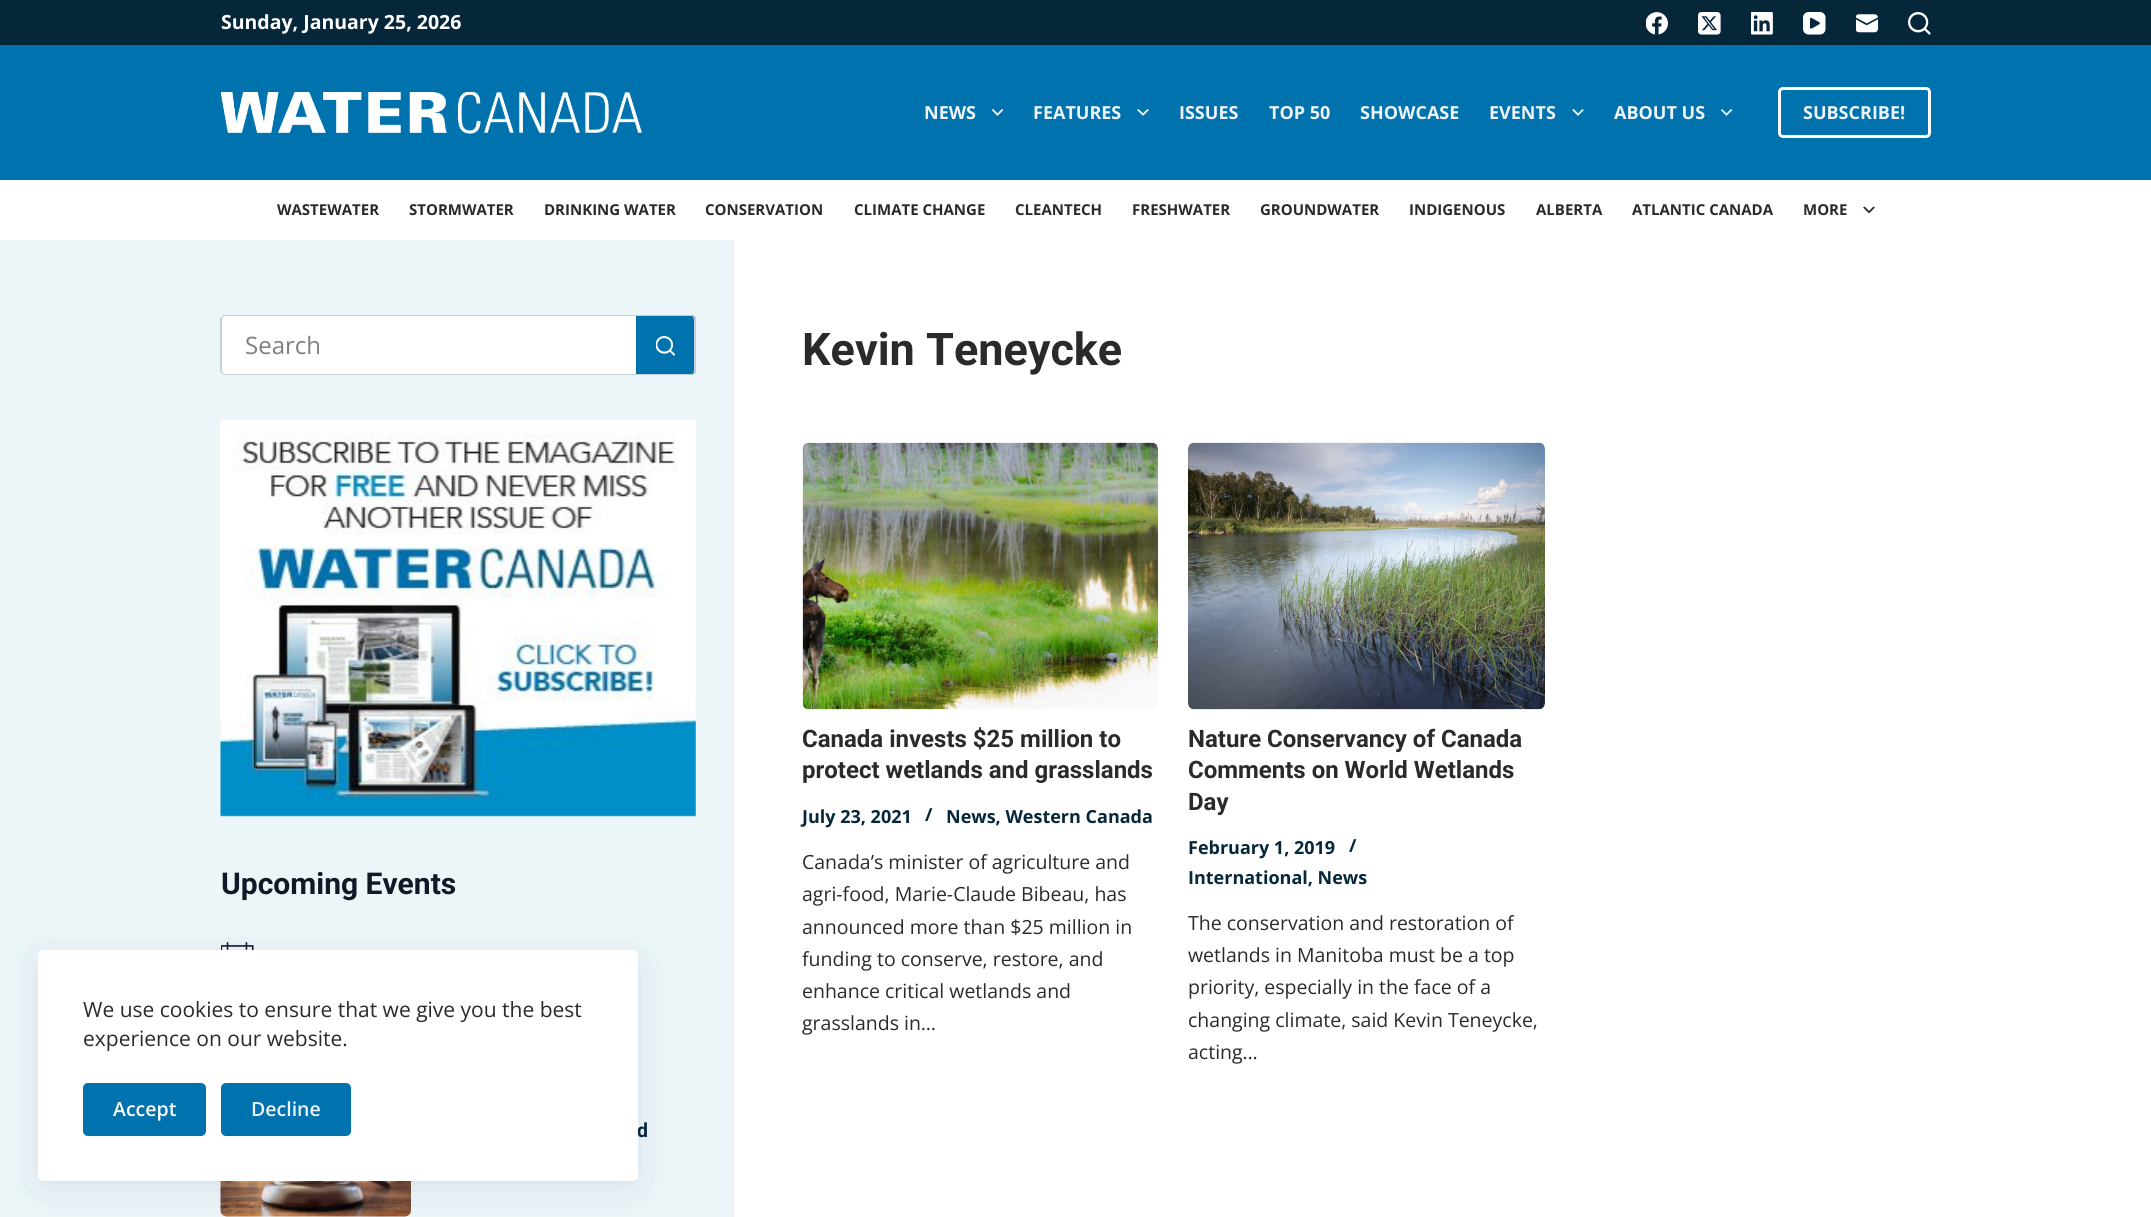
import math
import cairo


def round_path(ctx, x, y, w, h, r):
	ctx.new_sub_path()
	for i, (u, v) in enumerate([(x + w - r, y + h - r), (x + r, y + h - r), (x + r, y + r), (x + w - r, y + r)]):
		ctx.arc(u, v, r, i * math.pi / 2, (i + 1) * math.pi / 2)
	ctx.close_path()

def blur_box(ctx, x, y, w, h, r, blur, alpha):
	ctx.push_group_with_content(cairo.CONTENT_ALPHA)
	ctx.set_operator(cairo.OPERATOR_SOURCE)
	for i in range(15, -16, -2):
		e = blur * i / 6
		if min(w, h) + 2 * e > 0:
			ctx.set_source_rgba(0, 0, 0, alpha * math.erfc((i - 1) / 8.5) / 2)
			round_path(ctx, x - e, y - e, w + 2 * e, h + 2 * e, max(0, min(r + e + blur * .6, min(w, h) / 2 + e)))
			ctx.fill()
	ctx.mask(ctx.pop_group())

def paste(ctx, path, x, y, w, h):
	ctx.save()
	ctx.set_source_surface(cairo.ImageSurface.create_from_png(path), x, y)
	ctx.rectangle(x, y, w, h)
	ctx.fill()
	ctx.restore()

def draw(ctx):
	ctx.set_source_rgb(1, 1, 1)
	ctx.paint()
	ctx.set_source_rgb(0.02, 0.153, 0.224)
	ctx.rectangle(0, 0, 2151, 45)
	ctx.fill()
	ctx.select_font_face('Open Sans', cairo.FONT_SLANT_NORMAL, cairo.FONT_WEIGHT_BOLD)
	ctx.set_font_size(19.5)
	ctx.set_source_rgb(1, 1, 1)
	ctx.move_to(221, 29)
	ctx.show_text('Sunday, January 25, 2026')
	paste(ctx, 'media/1.png', 1646, 12, 22, 23)
	paste(ctx, 'media/2.png', 1698, 12, 23, 23)
	paste(ctx, 'media/3.png', 1751, 12, 22, 23)
	paste(ctx, 'media/4.png', 1803, 12, 23, 23)
	paste(ctx, 'media/5.png', 1856, 14, 22, 19)
	paste(ctx, 'media/6.png', 1908, 12, 23, 23)
	ctx.set_source_rgb(0, 0.451, 0.682)
	ctx.rectangle(0, 45, 2151, 135)
	ctx.fill()
	paste(ctx, 'media/7.png', 221, 92, 421, 42)
	ctx.set_font_size(18)
	ctx.set_source_rgb(0.933, 0.957, 0.973)
	ctx.move_to(924, 119)
	ctx.show_text('NEWS')
	paste(ctx, 'media/8.png', 992, 109, 12, 7)
	ctx.move_to(1033, 119)
	ctx.show_text('FEATURES')
	paste(ctx, 'media/9.png', 1137, 109, 12, 7)
	for x, y, s in [
		(1179, 119, 'ISSUES'),
		(1269, 119, 'TOP 50'),
		(1360, 119, 'SHOWCASE'),
		(1489, 119, 'EVENTS'),
	]:
		ctx.move_to(x, y)
		ctx.show_text(s)
	paste(ctx, 'media/9.png', 1572, 109, 12, 7)
	ctx.move_to(1614, 119)
	ctx.show_text('ABOUT US')
	paste(ctx, 'media/8.png', 1721, 109, 12, 7)
	round_path(ctx, 1779.5, 88.5, 150, 48, 3.5)
	ctx.set_source_rgb(1, 1, 1)
	ctx.set_line_width(3)
	ctx.stroke()
	ctx.set_source_rgb(0.933, 0.957, 0.973)
	ctx.move_to(1803, 119)
	ctx.show_text('SUBSCRIBE!')
	ctx.set_font_size(15)
	ctx.set_source_rgb(0.165, 0.165, 0.165)
	for x, y, s in [
		(277, 215, 'WASTEWATER'),
		(409, 215, 'STORMWATER'),
		(544, 215, 'DRINKING WATER'),
		(705, 215, 'CONSERVATION'),
		(854, 215, 'CLIMATE CHANGE'),
		(1015, 215, 'CLEANTECH'),
		(1132, 215, 'FRESHWATER'),
		(1260, 215, 'GROUNDWATER'),
		(1409, 215, 'INDIGENOUS'),
		(1536, 215, 'ALBERTA'),
		(1632, 215, 'ATLANTIC CANADA'),
		(1803, 215, 'MORE'),
	]:
		ctx.move_to(x, y)
		ctx.show_text(s)
	paste(ctx, 'media/10.png', 1863, 206, 12, 8)
	ctx.set_source_rgb(0.922, 0.961, 0.976)
	ctx.rectangle(0, 240, 734, 977)
	ctx.fill()
	ctx.set_source_rgb(1, 1, 1)
	ctx.new_path()
	ctx.move_to(226, 315)
	ctx.line_to(636, 315)
	ctx.line_to(636, 375)
	ctx.line_to(226, 375)
	ctx.curve_to(223, 375, 221, 373, 221, 370)
	ctx.line_to(221, 320)
	ctx.curve_to(221, 317, 223, 315, 226, 315)
	ctx.close_path()
	ctx.fill()
	ctx.set_source_rgb(0.769, 0.82, 0.851)
	ctx.set_fill_rule(cairo.FILL_RULE_EVEN_ODD)
	ctx.new_path()
	ctx.move_to(225, 315)
	ctx.line_to(636, 315)
	ctx.line_to(636, 375)
	ctx.line_to(225, 375)
	ctx.curve_to(223, 375, 220, 373, 220, 370)
	ctx.line_to(220, 320)
	ctx.curve_to(220, 317, 223, 315, 225, 315)
	ctx.close_path()
	ctx.move_to(225, 316)
	ctx.line_to(636, 316)
	ctx.line_to(636, 374)
	ctx.line_to(225, 374)
	ctx.curve_to(223, 374, 222, 372, 222, 370)
	ctx.line_to(222, 320)
	ctx.curve_to(222, 318, 223, 316, 225, 316)
	ctx.close_path()
	ctx.fill()
	ctx.select_font_face('Open Sans')
	ctx.set_font_size(24)
	ctx.set_source_rgb(0.498, 0.498, 0.498)
	ctx.move_to(245, 354)
	ctx.show_text('Search')
	ctx.set_source_rgb(0, 0.451, 0.682)
	ctx.new_path()
	ctx.move_to(636, 315)
	ctx.line_to(691, 315)
	ctx.curve_to(694, 315, 696, 317, 696, 320)
	ctx.line_to(696, 370)
	ctx.curve_to(696, 373, 694, 375, 691, 375)
	ctx.line_to(636, 375)
	ctx.close_path()
	ctx.fill()
	ctx.set_source_rgb(0.769, 0.82, 0.851)
	ctx.new_path()
	ctx.move_to(636, 315)
	ctx.line_to(692, 315)
	ctx.curve_to(694, 315, 696, 317, 696, 320)
	ctx.line_to(696, 370)
	ctx.curve_to(696, 373, 694, 375, 692, 375)
	ctx.line_to(636, 375)
	ctx.close_path()
	ctx.move_to(636, 316)
	ctx.line_to(692, 316)
	ctx.curve_to(693, 316, 694, 318, 694, 320)
	ctx.line_to(694, 370)
	ctx.curve_to(694, 372, 693, 374, 692, 374)
	ctx.line_to(636, 374)
	ctx.close_path()
	ctx.fill()
	paste(ctx, 'media/11.png', 656, 336, 19, 20)
	paste(ctx, 'media/12.png', 220, 420, 476, 397)
	ctx.select_font_face('Roboto', cairo.FONT_SLANT_NORMAL, cairo.FONT_WEIGHT_BOLD)
	ctx.set_font_size(30)
	ctx.set_source_rgb(0.078, 0.094, 0.153)
	ctx.move_to(221, 894)
	ctx.show_text('Upcoming Events')
	paste(ctx, 'media/13.png', 221, 942, 33, 8)
	ctx.set_font_size(19.5)
	ctx.set_source_rgb(0.02, 0.153, 0.224)
	ctx.move_to(637, 1137)
	ctx.show_text('d')
	paste(ctx, 'media/14.png', 220, 1181, 191, 36)
	ctx.set_font_size(45)
	ctx.set_source_rgb(0.165, 0.165, 0.165)
	ctx.move_to(802, 365)
	ctx.show_text('Kevin Teneycke')
	paste(ctx, 'media/15.png', 802, 442, 356, 268)
	ctx.set_font_size(24)
	ctx.move_to(802, 747)
	ctx.show_text('Canada invests $25 million to')
	ctx.move_to(802, 778)
	ctx.show_text('protect wetlands and grasslands')
	ctx.select_font_face('Open Sans', cairo.FONT_SLANT_NORMAL, cairo.FONT_WEIGHT_BOLD)
	ctx.set_font_size(18)
	ctx.set_source_rgb(0.02, 0.153, 0.224)
	for x, y, s in [
		(802, 823, 'July 23, 2021'),
		(925, 821, '/'),
		(946, 823, 'News, Western Canada'),
	]:
		ctx.move_to(x, y)
		ctx.show_text(s)
	ctx.select_font_face('Open Sans')
	ctx.set_font_size(19.5)
	ctx.set_source_rgb(0.165, 0.165, 0.165)
	for x, y, s in [
		(802, 869, 'Canada’s minister of agriculture and'),
		(802, 901, 'agri-food, Marie-Claude Bibeau, has'),
		(802, 934, 'announced more than $25 million in'),
		(802, 966, 'funding to conserve, restore, and'),
		(802, 998, 'enhance critical wetlands and'),
		(802, 1030, 'grasslands in…'),
	]:
		ctx.move_to(x, y)
		ctx.show_text(s)
	paste(ctx, 'media/16.png', 1188, 442, 357, 268)
	ctx.select_font_face('Roboto', cairo.FONT_SLANT_NORMAL, cairo.FONT_WEIGHT_BOLD)
	ctx.set_font_size(24)
	for x, y, s in [
		(1188, 747, 'Nature Conservancy of Canada'),
		(1188, 778, 'Comments on World Wetlands'),
		(1188, 810, 'Day'),
	]:
		ctx.move_to(x, y)
		ctx.show_text(s)
	ctx.select_font_face('Open Sans', cairo.FONT_SLANT_NORMAL, cairo.FONT_WEIGHT_BOLD)
	ctx.set_font_size(18)
	ctx.set_source_rgb(0.02, 0.153, 0.224)
	for x, y, s in [
		(1188, 854, 'February 1, 2019'),
		(1349, 852, '/'),
		(1188, 884, 'International, News'),
	]:
		ctx.move_to(x, y)
		ctx.show_text(s)
	ctx.select_font_face('Open Sans')
	ctx.set_font_size(19.5)
	ctx.set_source_rgb(0.165, 0.165, 0.165)
	for x, y, s in [
		(1188, 930, 'The conservation and restoration of'),
		(1188, 962, 'wetlands in Manitoba must be a top'),
		(1188, 994, 'priority, especially in the face of a'),
		(1188, 1027, 'changing climate, said Kevin Teneycke,'),
		(1188, 1059, 'acting…'),
	]:
		ctx.move_to(x, y)
		ctx.show_text(s)
	ctx.set_source_rgb(0.133, 0.22, 0.396)
	blur_box(ctx, 45, 965, 585, 216, 0, 22.5, 0.15)
	ctx.set_source_rgb(1, 1, 1)
	round_path(ctx, 38, 950, 600, 231, 5)
	ctx.fill()
	ctx.set_font_size(21)
	ctx.set_source_rgb(0.165, 0.165, 0.165)
	ctx.move_to(83, 1017)
	ctx.show_text('We use cookies to ensure that we give you the best')
	ctx.move_to(83, 1046)
	ctx.show_text('experience on our website.')
	ctx.set_source_rgb(0, 0.451, 0.682)
	round_path(ctx, 83, 1083, 123, 53, 5)
	ctx.fill()
	ctx.select_font_face('Open Sans SemiBold')
	ctx.set_font_size(19.5)
	ctx.set_source_rgb(1, 1, 1)
	ctx.move_to(113, 1116)
	ctx.show_text('Accept')
	ctx.set_source_rgb(0, 0.451, 0.682)
	round_path(ctx, 221, 1083, 130, 53, 5)
	ctx.fill()
	ctx.set_source_rgb(0.933, 0.957, 0.973)
	ctx.move_to(251, 1116)
	ctx.show_text('Decline')


surface = cairo.ImageSurface(cairo.FORMAT_RGB24, 2151, 1217)
ctx = cairo.Context(surface)
options = cairo.FontOptions()
options.set_hint_metrics(cairo.HINT_METRICS_OFF)
options.set_hint_style(cairo.HINT_STYLE_NONE)
ctx.set_font_options(options)
ctx.set_miter_limit(4)
draw(ctx)
surface.write_to_png('image.png')
